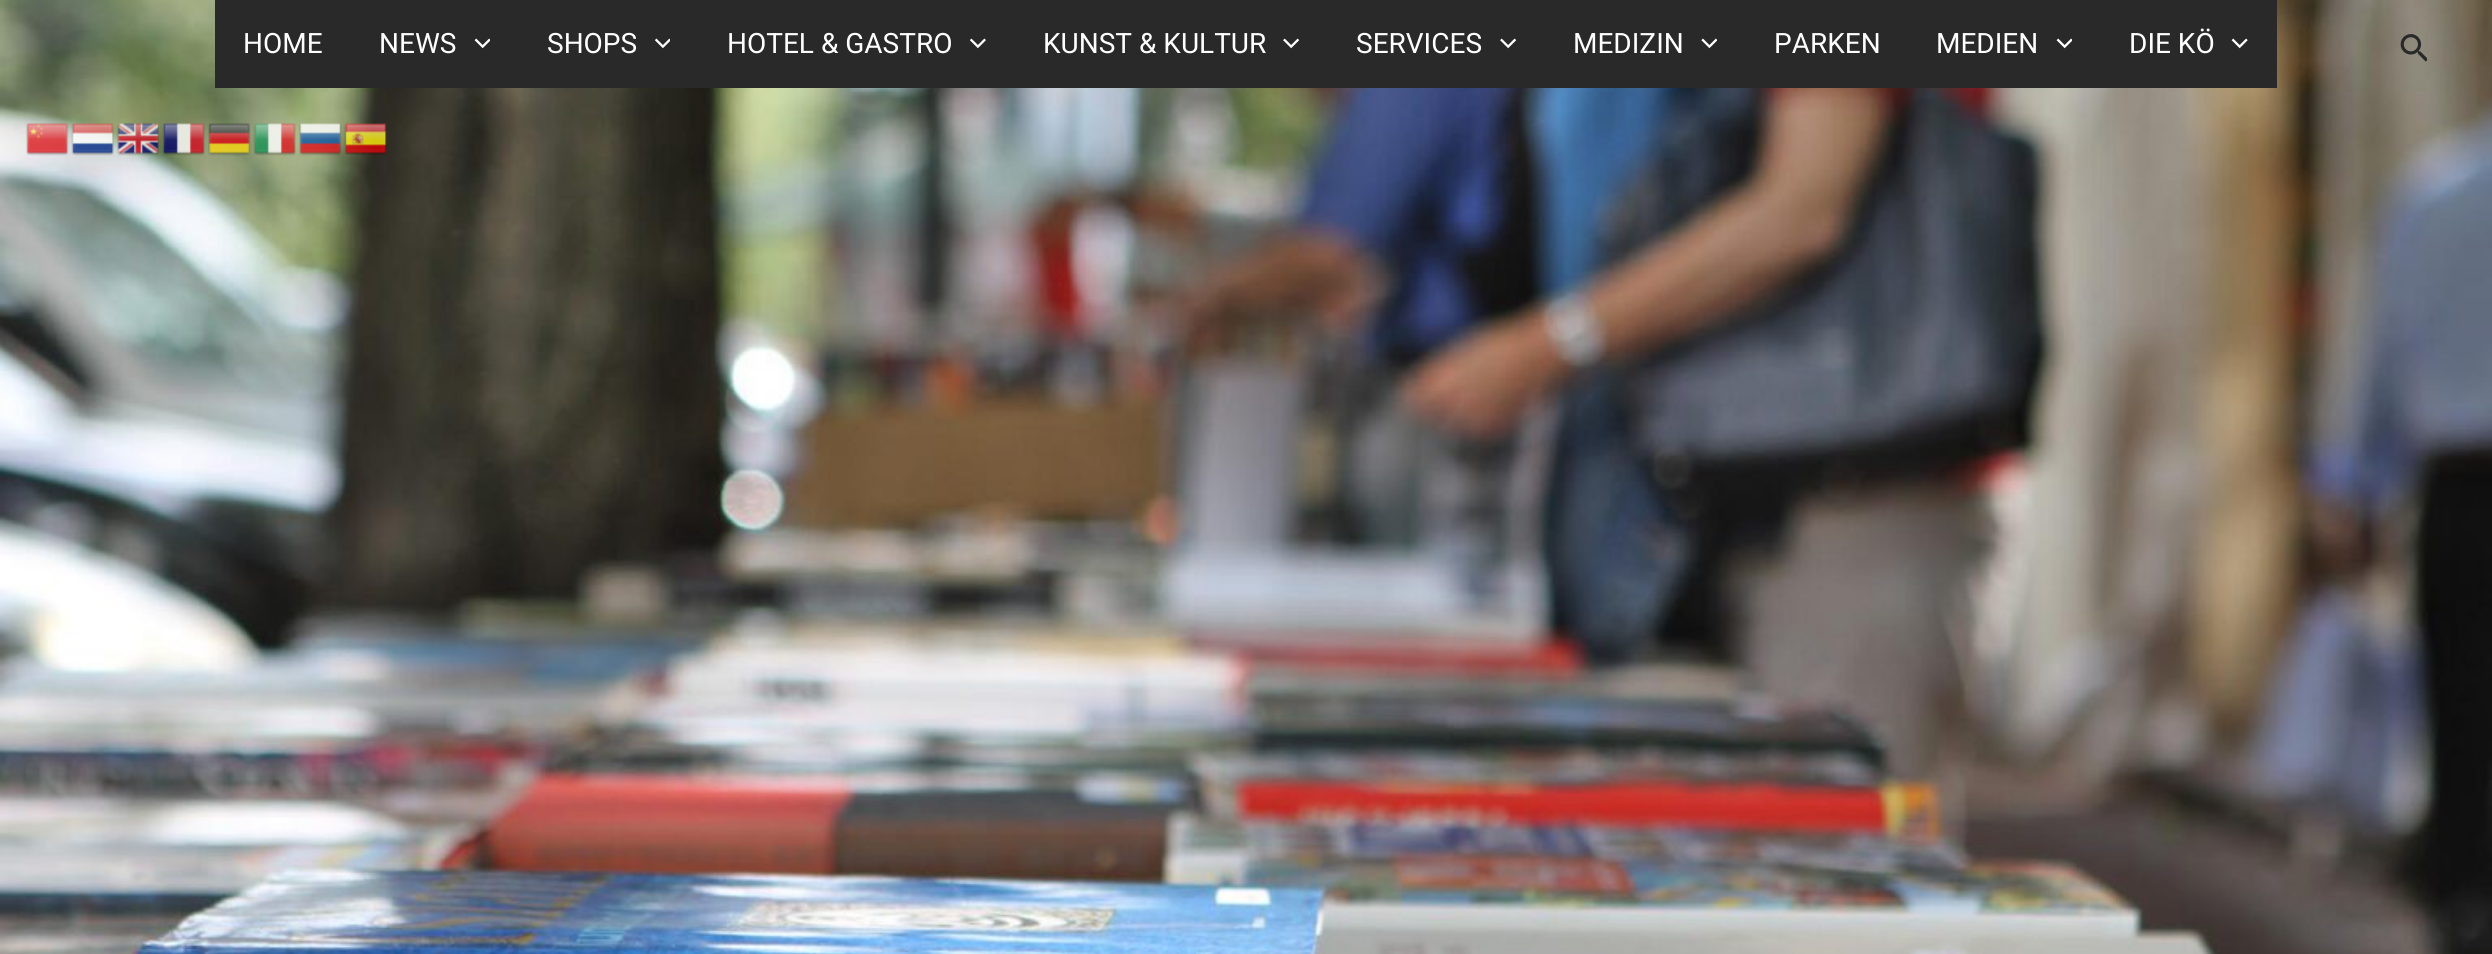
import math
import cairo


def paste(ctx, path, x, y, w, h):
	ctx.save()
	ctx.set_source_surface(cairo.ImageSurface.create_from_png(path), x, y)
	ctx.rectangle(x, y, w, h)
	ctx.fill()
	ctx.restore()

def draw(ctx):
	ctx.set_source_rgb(1, 1, 1)
	ctx.paint()
	paste(ctx, 'media/1.png', 0, 0, 2492, 954)
	ctx.set_source_rgb(0.161, 0.161, 0.161)
	ctx.rectangle(215, 0, 2062, 88)
	ctx.fill()
	ctx.select_font_face('Roboto')
	ctx.set_font_size(28)
	ctx.set_source_rgb(1, 1, 1)
	ctx.move_to(243, 53)
	ctx.show_text('HOME')
	ctx.move_to(379, 53)
	ctx.show_text('NEWS')
	paste(ctx, 'media/2.png', 474, 38, 16, 11)
	ctx.move_to(547, 53)
	ctx.show_text('SHOPS')
	paste(ctx, 'media/3.png', 655, 38, 15, 11)
	ctx.move_to(727, 53)
	ctx.show_text('HOTEL & GASTRO')
	paste(ctx, 'media/4.png', 970, 38, 16, 11)
	ctx.move_to(1043, 53)
	ctx.show_text('KUNST & KULTUR')
	paste(ctx, 'media/5.png', 1283, 38, 17, 11)
	ctx.move_to(1356, 53)
	ctx.show_text('SERVICES')
	paste(ctx, 'media/5.png', 1500, 38, 17, 11)
	ctx.move_to(1573, 53)
	ctx.show_text('MEDIZIN')
	paste(ctx, 'media/6.png', 1701, 38, 16, 11)
	ctx.move_to(1774, 53)
	ctx.show_text('PARKEN')
	ctx.move_to(1936, 53)
	ctx.show_text('MEDIEN')
	paste(ctx, 'media/2.png', 2056, 38, 16, 11)
	ctx.move_to(2129, 53)
	ctx.show_text('DIE KÖ')
	paste(ctx, 'media/7.png', 2231, 38, 17, 11)
	paste(ctx, 'media/8.png', 2400, 34, 27, 28)
	paste(ctx, 'media/9.png', 26, 123, 43, 33)
	paste(ctx, 'media/10.png', 71, 123, 43, 33)
	paste(ctx, 'media/11.png', 117, 123, 42, 33)
	paste(ctx, 'media/12.png', 162, 123, 43, 33)
	paste(ctx, 'media/13.png', 208, 123, 43, 33)
	paste(ctx, 'media/14.png', 253, 123, 43, 33)
	paste(ctx, 'media/15.png', 299, 123, 43, 33)
	paste(ctx, 'media/16.png', 344, 123, 43, 32)


surface = cairo.ImageSurface(cairo.FORMAT_RGB24, 2492, 954)
ctx = cairo.Context(surface)
options = cairo.FontOptions()
options.set_hint_metrics(cairo.HINT_METRICS_OFF)
options.set_hint_style(cairo.HINT_STYLE_NONE)
ctx.set_font_options(options)
ctx.set_miter_limit(4)
draw(ctx)
surface.write_to_png('image.png')
